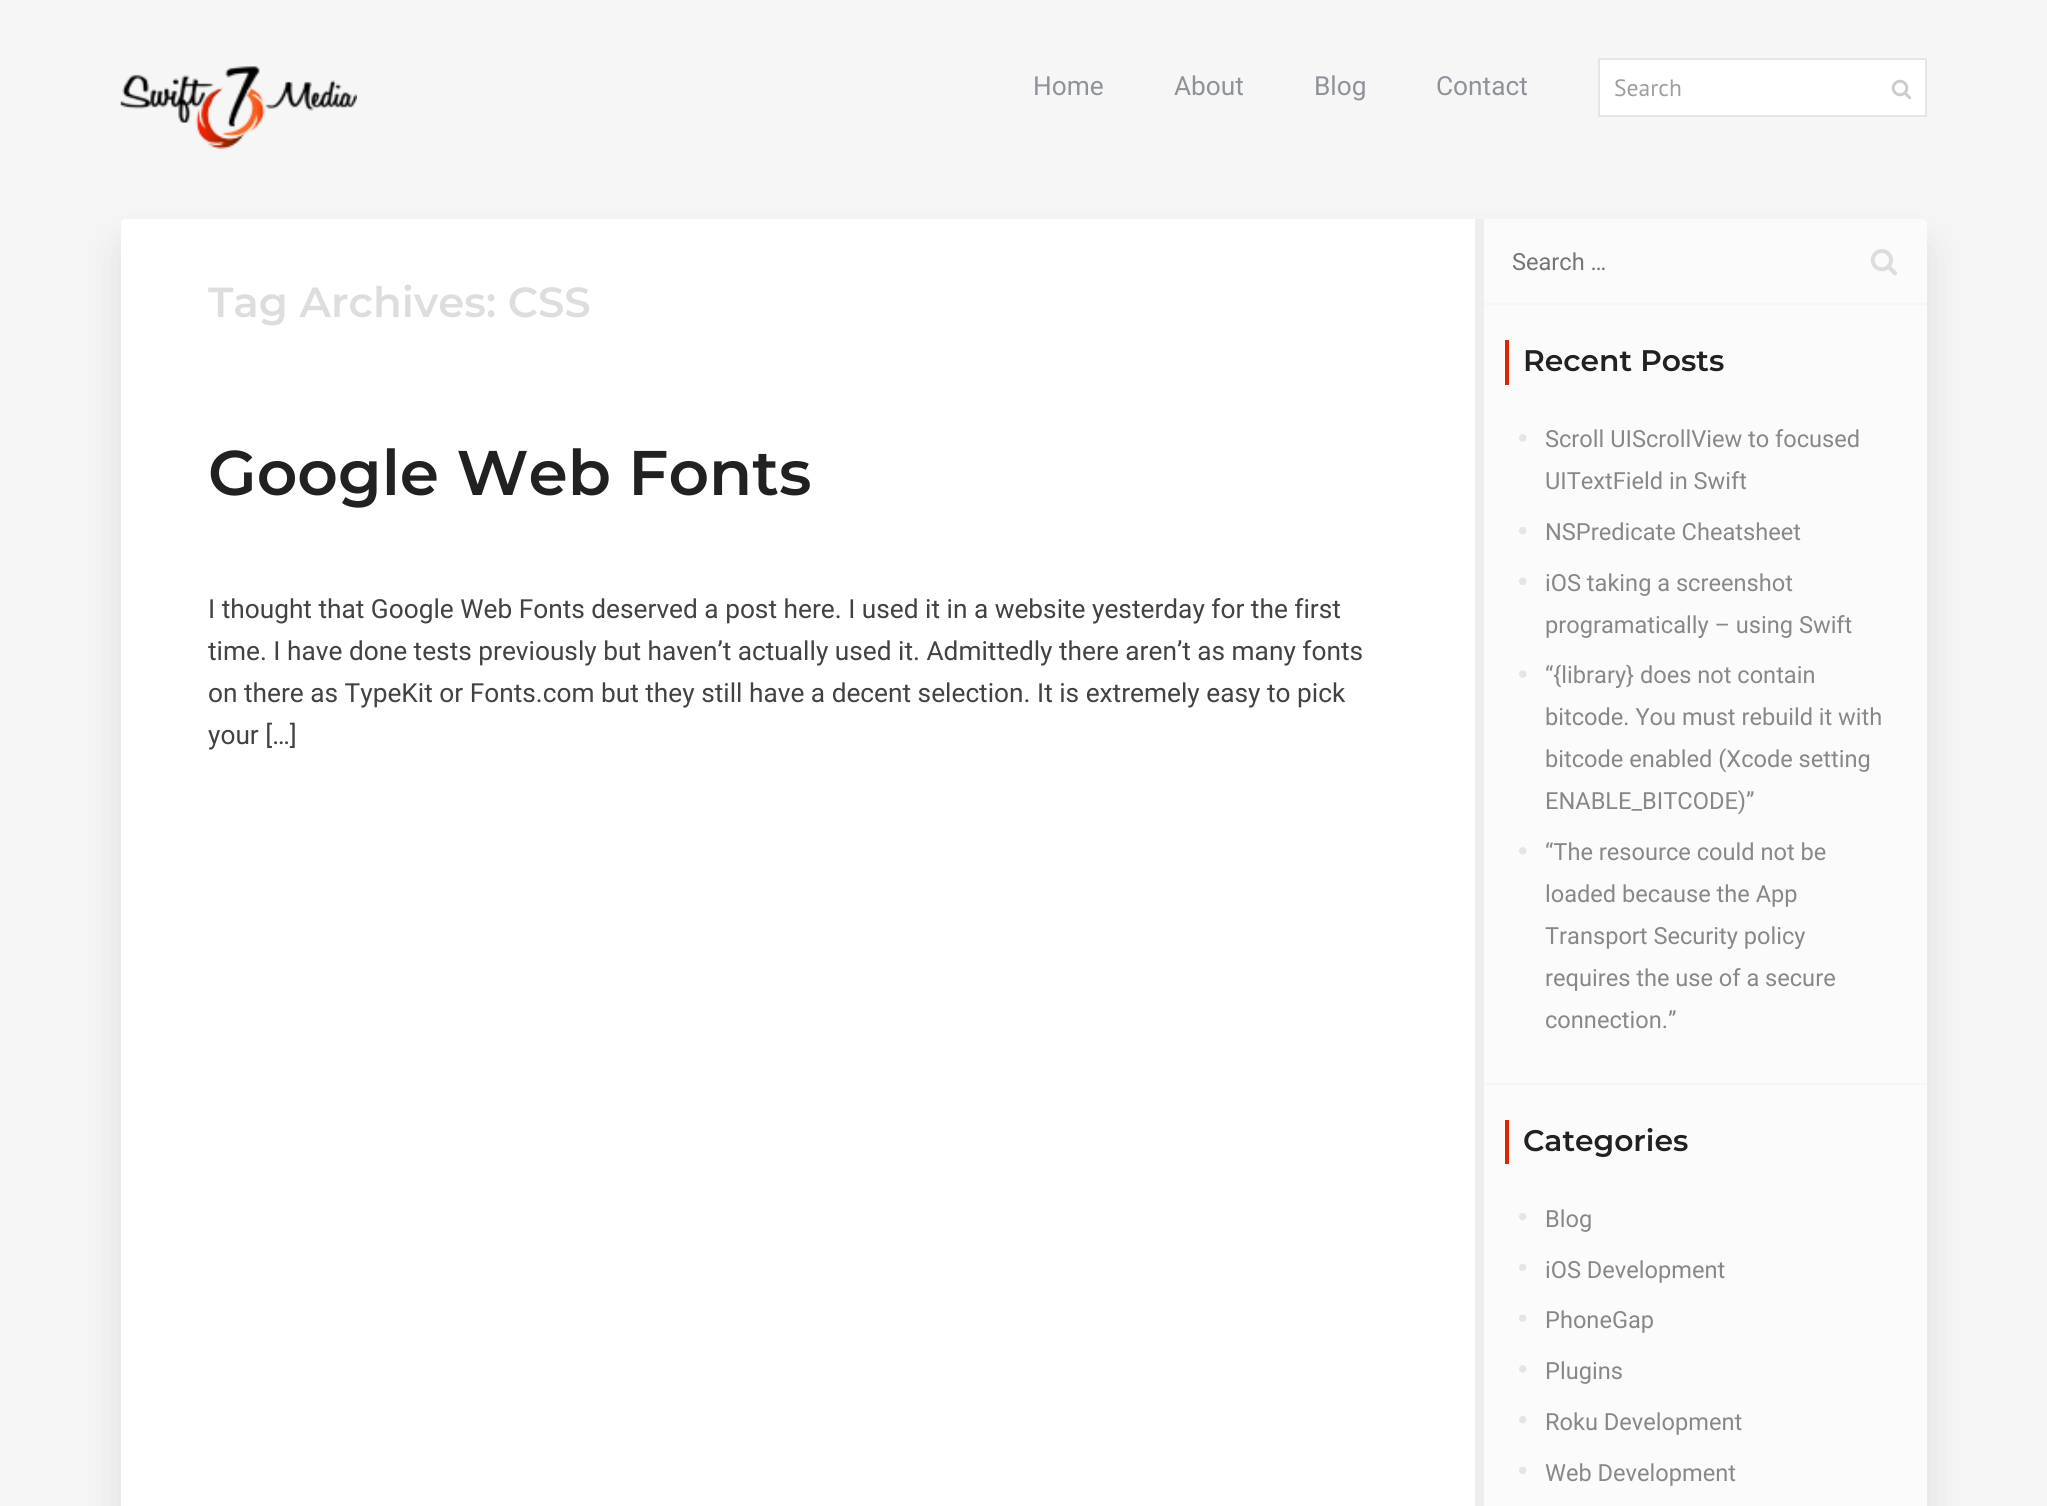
import math
import cairo


def round_path(ctx, x, y, w, h, r):
	ctx.new_sub_path()
	for i, (u, v) in enumerate([(x + w - r, y + h - r), (x + r, y + h - r), (x + r, y + r), (x + w - r, y + r)]):
		ctx.arc(u, v, r, i * math.pi / 2, (i + 1) * math.pi / 2)
	ctx.close_path()

def blur_box(ctx, x, y, w, h, r, blur, alpha):
	ctx.push_group_with_content(cairo.CONTENT_ALPHA)
	ctx.set_operator(cairo.OPERATOR_SOURCE)
	for i in range(15, -16, -2):
		e = blur * i / 6
		if min(w, h) + 2 * e > 0:
			ctx.set_source_rgba(0, 0, 0, alpha * math.erfc((i - 1) / 8.5) / 2)
			round_path(ctx, x - e, y - e, w + 2 * e, h + 2 * e, max(0, min(r + e + blur * .6, min(w, h) / 2 + e)))
			ctx.fill()
	ctx.mask(ctx.pop_group())

def paste(ctx, path, x, y, w, h):
	ctx.save()
	ctx.set_source_surface(cairo.ImageSurface.create_from_png(path), x, y)
	ctx.rectangle(x, y, w, h)
	ctx.fill()
	ctx.restore()

def draw(ctx):
	ctx.set_source_rgb(0.961, 0.961, 0.961)
	ctx.paint()
	paste(ctx, 'media/1.png', 120, 66, 237, 84)
	ctx.select_font_face('Roboto')
	ctx.set_font_size(26.25)
	ctx.set_source_rgb(0.557, 0.576, 0.604)
	for x, y, s in [
		(1033, 95, 'Home'),
		(1174, 95, 'About'),
		(1314, 95, 'Blog'),
		(1436, 95, 'Contact'),
	]:
		ctx.move_to(x, y)
		ctx.show_text(s)
	ctx.set_source_rgb(1, 1, 1)
	ctx.rectangle(1599, 59, 327, 57)
	ctx.fill_preserve()
	ctx.set_source_rgb(0.898, 0.898, 0.898)
	ctx.stroke()
	ctx.select_font_face('PT Sans')
	ctx.set_font_size(23.6)
	ctx.set_source_rgb(0.62, 0.62, 0.62)
	ctx.move_to(1614, 96)
	ctx.show_text('Search')
	paste(ctx, 'media/2.png', 1891, 79, 21, 21)
	ctx.set_source_rgb(0, 0, 0)
	blur_box(ctx, 121, 245, 1806, 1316, 5, 22, 0.1)
	ctx.set_source_rgb(1, 1, 1)
	ctx.new_path()
	ctx.move_to(126, 219)
	ctx.line_to(1475, 219)
	ctx.line_to(1475, 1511)
	ctx.line_to(126, 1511)
	ctx.curve_to(123, 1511, 121, 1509, 121, 1506)
	ctx.line_to(121, 224)
	ctx.curve_to(121, 221, 123, 219, 126, 219)
	ctx.close_path()
	ctx.fill()
	ctx.select_font_face('Montserrat SemiBold')
	ctx.set_font_size(42)
	ctx.set_source_rgb(0.867, 0.867, 0.867)
	ctx.move_to(208, 317)
	ctx.show_text('Tag Archives: CSS')
	ctx.set_font_size(63)
	ctx.set_source_rgb(0.129, 0.129, 0.129)
	ctx.move_to(208, 495)
	ctx.show_text('Google Web Fonts')
	ctx.select_font_face('Roboto')
	ctx.set_font_size(26.25)
	ctx.set_source_rgb(0.259, 0.259, 0.259)
	for x, y, s in [
		(208, 618, 'I thought that Google Web Fonts deserved a post here. I used it in a website yesterday for the first'),
		(208, 660, 'time. I have done tests previously but haven’t actually used it. Admittedly there aren’t as many fonts'),
		(208, 702, 'on there as TypeKit or Fonts.com but they still have a decent selection. It is extremely easy to pick'),
		(208, 744, 'your […]'),
	]:
		ctx.move_to(x, y)
		ctx.show_text(s)
	ctx.set_source_rgb(0.984, 0.984, 0.984)
	ctx.new_path()
	ctx.move_to(1475, 219)
	ctx.line_to(1922, 219)
	ctx.curve_to(1925, 219, 1927, 221, 1927, 224)
	ctx.line_to(1927, 1506)
	ctx.curve_to(1927, 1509, 1925, 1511, 1922, 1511)
	ctx.line_to(1475, 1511)
	ctx.close_path()
	ctx.fill()
	ctx.set_source_rgb(0.933, 0.933, 0.933)
	ctx.rectangle(1475, 219, 9, 1287)
	ctx.fill()
	ctx.set_source_rgb(0.961, 0.961, 0.961)
	ctx.rectangle(1484, 303, 443, 2)
	ctx.fill()
	ctx.set_font_size(23.6)
	ctx.set_source_rgb(0.459, 0.459, 0.459)
	ctx.move_to(1512, 270)
	ctx.show_text('Search …')
	paste(ctx, 'media/3.png', 1870, 249, 27, 27)
	ctx.set_source_rgb(0.961, 0.961, 0.961)
	ctx.rectangle(1484, 1083, 443, 2)
	ctx.fill()
	ctx.set_source_rgb(0.859, 0.153, 0)
	ctx.rectangle(1505, 340, 4, 45)
	ctx.fill()
	ctx.select_font_face('Montserrat SemiBold')
	ctx.set_font_size(29.75)
	ctx.set_source_rgb(0.129, 0.129, 0.129)
	ctx.move_to(1523, 371)
	ctx.show_text('Recent Posts')
	paste(ctx, 'media/4.png', 1519, 434, 8, 8)
	ctx.select_font_face('Roboto')
	ctx.set_font_size(23.6)
	ctx.set_source_rgb(0.533, 0.533, 0.533)
	ctx.move_to(1545, 447)
	ctx.show_text('Scroll UIScrollView to focused')
	ctx.move_to(1545, 489)
	ctx.show_text('UITextField in Swift')
	paste(ctx, 'media/5.png', 1519, 527, 8, 8)
	ctx.move_to(1545, 540)
	ctx.show_text('NSPredicate Cheatsheet')
	paste(ctx, 'media/6.png', 1519, 577, 8, 8)
	ctx.move_to(1545, 591)
	ctx.show_text('iOS taking a screenshot')
	ctx.move_to(1545, 633)
	ctx.show_text('programatically – using Swift')
	paste(ctx, 'media/7.png', 1519, 670, 8, 8)
	for x, y, s in [
		(1545, 683, '“{library} does not contain'),
		(1545, 725, 'bitcode. You must rebuild it with'),
		(1545, 767, 'bitcode enabled (Xcode setting'),
		(1545, 809, 'ENABLE_BITCODE)”'),
	]:
		ctx.move_to(x, y)
		ctx.show_text(s)
	paste(ctx, 'media/4.png', 1519, 847, 8, 8)
	for x, y, s in [
		(1545, 860, '“The resource could not be'),
		(1545, 902, 'loaded because the App'),
		(1545, 944, 'Transport Security policy'),
		(1545, 986, 'requires the use of a secure'),
		(1545, 1028, 'connection.”'),
	]:
		ctx.move_to(x, y)
		ctx.show_text(s)
	ctx.set_source_rgb(0.859, 0.153, 0)
	ctx.rectangle(1505, 1120, 4, 44)
	ctx.fill()
	ctx.select_font_face('Montserrat SemiBold')
	ctx.set_font_size(29.75)
	ctx.set_source_rgb(0.129, 0.129, 0.129)
	ctx.move_to(1523, 1151)
	ctx.show_text('Categories')
	paste(ctx, 'media/5.png', 1519, 1213, 8, 8)
	ctx.select_font_face('Roboto')
	ctx.set_font_size(23.6)
	ctx.set_source_rgb(0.533, 0.533, 0.533)
	ctx.move_to(1545, 1227)
	ctx.show_text('Blog')
	paste(ctx, 'media/6.png', 1519, 1263, 8, 8)
	ctx.move_to(1545, 1278)
	ctx.show_text('iOS Development')
	paste(ctx, 'media/7.png', 1519, 1314, 8, 8)
	ctx.move_to(1545, 1328)
	ctx.show_text('PhoneGap')
	paste(ctx, 'media/4.png', 1519, 1365, 8, 8)
	ctx.move_to(1545, 1379)
	ctx.show_text('Plugins')
	paste(ctx, 'media/5.png', 1519, 1416, 8, 8)
	ctx.move_to(1545, 1430)
	ctx.show_text('Roku Development')
	paste(ctx, 'media/6.png', 1519, 1466, 8, 8)
	ctx.move_to(1545, 1481)
	ctx.show_text('Web Development')


surface = cairo.ImageSurface(cairo.FORMAT_RGB24, 2047, 1506)
ctx = cairo.Context(surface)
options = cairo.FontOptions()
options.set_hint_metrics(cairo.HINT_METRICS_OFF)
options.set_hint_style(cairo.HINT_STYLE_NONE)
ctx.set_font_options(options)
ctx.set_miter_limit(4)
draw(ctx)
surface.write_to_png('image.png')
